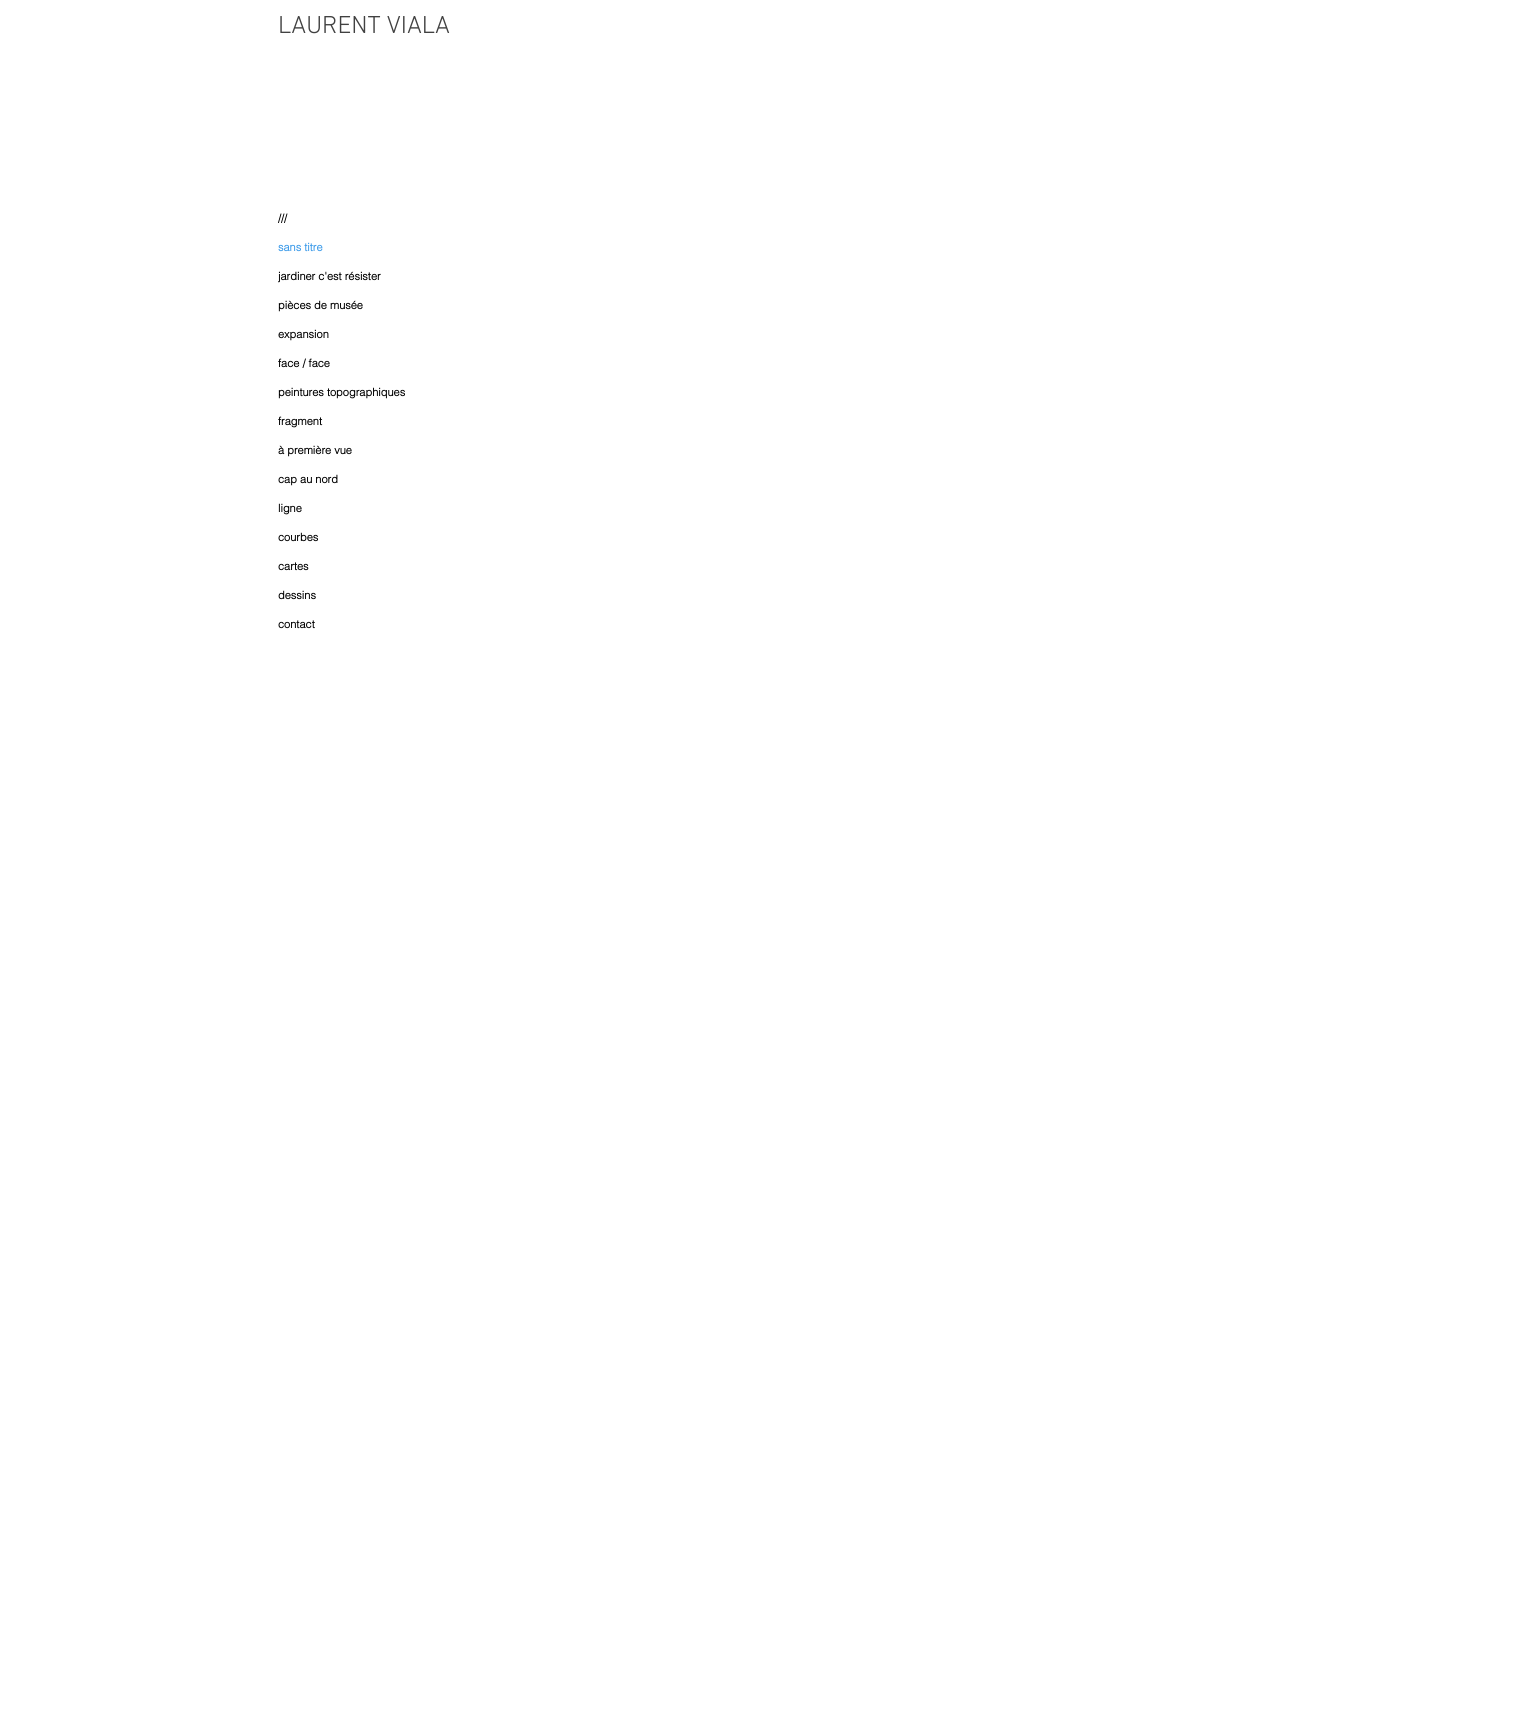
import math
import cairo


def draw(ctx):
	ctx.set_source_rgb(1, 1, 1)
	ctx.paint()
	ctx.select_font_face('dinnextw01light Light')
	ctx.set_font_size(25)
	ctx.set_source_rgb(0.255, 0.255, 0.255)
	ctx.move_to(278, 33)
	ctx.show_text('LAURENT VIALA')
	ctx.select_font_face('helvetica', cairo.FONT_SLANT_NORMAL, cairo.FONT_WEIGHT_BOLD)
	ctx.set_font_size(11)
	ctx.set_source_rgb(0, 0, 0)
	ctx.move_to(278, 222)
	ctx.show_text('///')
	ctx.set_source_rgb(0.239, 0.608, 0.914)
	ctx.move_to(278, 251)
	ctx.show_text('sans titre')
	ctx.set_source_rgb(0, 0, 0)
	for x, y, s in [
		(278, 280, 'jardiner c\'est résister'),
		(278, 309, 'pièces de musée'),
		(278, 338, 'expansion'),
		(278, 367, 'face / face'),
		(278, 396, 'peintures topographiques'),
		(278, 425, 'fragment'),
		(278, 454, 'à première vue'),
		(278, 483, 'cap au nord'),
		(278, 512, 'ligne'),
		(278, 541, 'courbes'),
		(278, 570, 'cartes'),
		(278, 599, 'dessins'),
		(278, 628, 'contact'),
	]:
		ctx.move_to(x, y)
		ctx.show_text(s)


surface = cairo.ImageSurface(cairo.FORMAT_RGB24, 1516, 1718)
ctx = cairo.Context(surface)
options = cairo.FontOptions()
options.set_hint_metrics(cairo.HINT_METRICS_OFF)
options.set_hint_style(cairo.HINT_STYLE_NONE)
ctx.set_font_options(options)
ctx.set_miter_limit(4)
draw(ctx)
surface.write_to_png('image.png')
